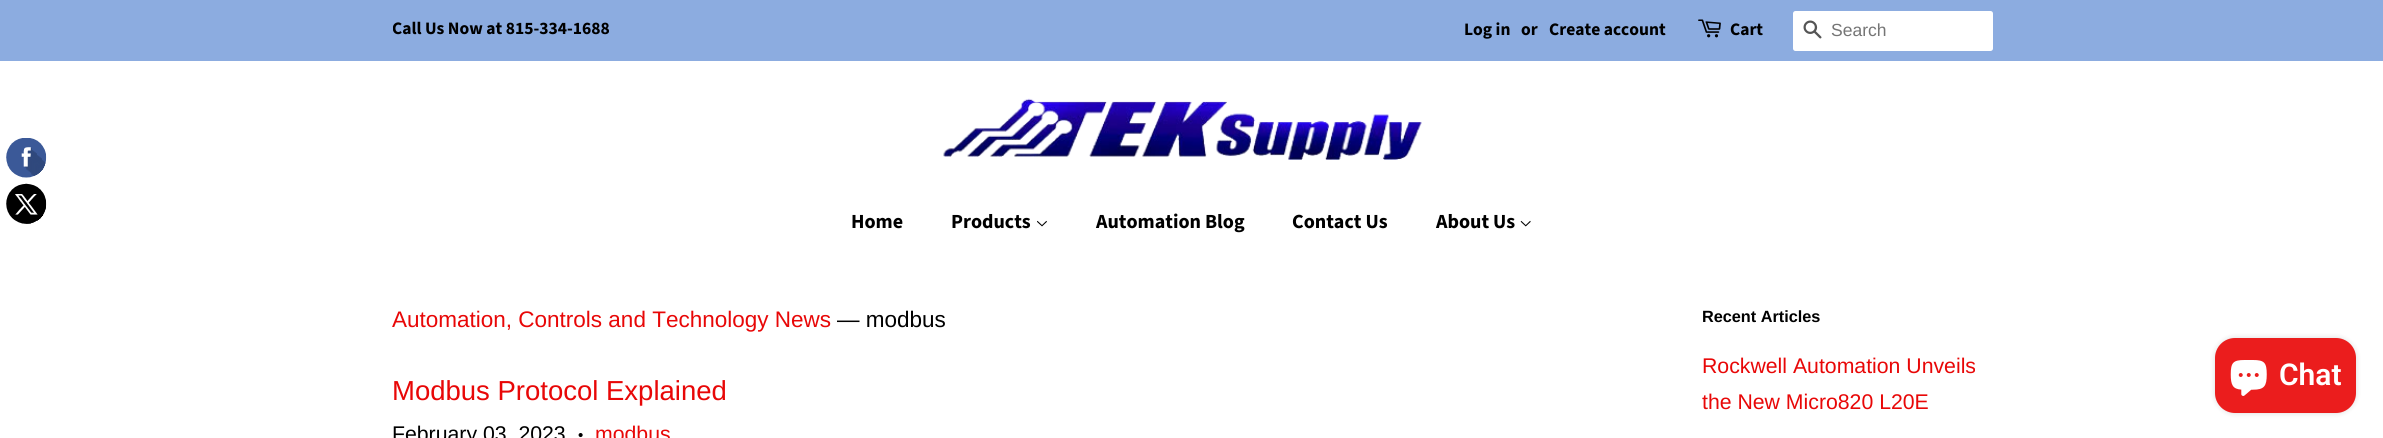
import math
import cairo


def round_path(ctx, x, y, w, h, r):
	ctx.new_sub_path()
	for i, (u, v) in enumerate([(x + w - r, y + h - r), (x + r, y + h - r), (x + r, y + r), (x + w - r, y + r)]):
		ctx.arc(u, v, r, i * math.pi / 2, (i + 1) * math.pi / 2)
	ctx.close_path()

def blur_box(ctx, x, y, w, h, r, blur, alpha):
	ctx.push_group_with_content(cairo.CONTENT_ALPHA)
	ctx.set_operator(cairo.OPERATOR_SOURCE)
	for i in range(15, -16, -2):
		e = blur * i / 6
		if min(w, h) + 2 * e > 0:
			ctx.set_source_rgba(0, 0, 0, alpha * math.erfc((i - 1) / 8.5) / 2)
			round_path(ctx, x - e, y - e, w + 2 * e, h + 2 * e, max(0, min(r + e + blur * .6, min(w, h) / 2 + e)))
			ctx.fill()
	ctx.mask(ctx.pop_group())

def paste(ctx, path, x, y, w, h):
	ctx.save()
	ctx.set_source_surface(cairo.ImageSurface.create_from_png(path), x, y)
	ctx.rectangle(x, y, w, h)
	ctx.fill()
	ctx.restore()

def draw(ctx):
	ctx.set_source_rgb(1, 1, 1)
	ctx.paint()
	paste(ctx, 'media/1.png', 6, 138, 41, 86)
	ctx.set_source_rgb(0.549, 0.675, 0.878)
	ctx.rectangle(0, 0, 2383, 61)
	ctx.fill()
	ctx.save()
	ctx.rectangle(393, 16, 217, 29)
	ctx.clip()
	ctx.select_font_face('Source Sans Pro', cairo.FONT_SLANT_NORMAL, cairo.FONT_WEIGHT_BOLD)
	ctx.set_font_size(17.5)
	ctx.set_source_rgb(0, 0, 0)
	ctx.move_to(392, 34)
	ctx.show_text('Call Us Now at 815-334-1688')
	ctx.restore()
	ctx.select_font_face('Source Sans Pro', cairo.FONT_SLANT_NORMAL, cairo.FONT_WEIGHT_BOLD)
	ctx.set_font_size(17.5)
	ctx.set_source_rgb(0, 0, 0)
	for x, y, s in [
		(1464, 35, 'Log in'),
		(1521, 35, 'or'),
		(1549, 35, 'Create account'),
	]:
		ctx.move_to(x, y)
		ctx.show_text(s)
	paste(ctx, 'media/2.png', 1698, 19, 23, 19)
	ctx.move_to(1730, 35)
	ctx.show_text('Cart')
	ctx.set_source_rgb(1, 1, 1)
	round_path(ctx, 1793, 11, 200, 40, 2.5)
	ctx.fill()
	paste(ctx, 'media/3.png', 1803, 20, 19, 19)
	ctx.select_font_face('Arimo')
	ctx.set_source_rgb(0.459, 0.459, 0.459)
	ctx.move_to(1831, 36)
	ctx.show_text('Search')
	paste(ctx, 'media/4.png', 943, 98, 479, 62)
	ctx.select_font_face('Source Sans Pro', cairo.FONT_SLANT_NORMAL, cairo.FONT_WEIGHT_BOLD)
	ctx.set_font_size(20)
	ctx.set_source_rgb(0, 0, 0)
	ctx.move_to(851, 228)
	ctx.show_text('Home')
	ctx.move_to(951, 228)
	ctx.show_text('Products')
	paste(ctx, 'media/5.png', 1037, 220, 10, 7)
	for x, y, s in [
		(1096, 228, 'Automation Blog'),
		(1292, 228, 'Contact Us'),
		(1436, 228, 'About Us'),
	]:
		ctx.move_to(x, y)
		ctx.show_text(s)
	paste(ctx, 'media/6.png', 1520, 220, 11, 7)
	ctx.select_font_face('Arimo')
	ctx.set_font_size(22.5)
	ctx.set_source_rgb(0.91, 0.031, 0.031)
	ctx.move_to(392, 327)
	ctx.show_text('Automation, Controls and Technology News')
	ctx.set_source_rgb(0, 0, 0)
	ctx.move_to(837, 327)
	ctx.show_text('— modbus')
	ctx.set_font_size(27.5)
	ctx.set_source_rgb(0.91, 0.031, 0.031)
	ctx.move_to(392, 400)
	ctx.show_text('Modbus Protocol Explained')
	ctx.set_font_size(21.25)
	ctx.set_source_rgb(0, 0, 0)
	ctx.move_to(392, 441)
	ctx.show_text('February 03, 2023')
	ctx.set_font_size(15)
	ctx.move_to(578, 440)
	ctx.show_text('•')
	ctx.set_font_size(21.25)
	ctx.set_source_rgb(0.91, 0.031, 0.031)
	ctx.move_to(595, 441)
	ctx.show_text('modbus')
	ctx.select_font_face('Arimo', cairo.FONT_SLANT_NORMAL, cairo.FONT_WEIGHT_BOLD)
	ctx.set_font_size(16.25)
	ctx.set_source_rgb(0, 0, 0)
	ctx.move_to(1702, 322)
	ctx.show_text('Recent Articles')
	ctx.select_font_face('Arimo')
	ctx.set_font_size(21.25)
	ctx.set_source_rgb(0.91, 0.031, 0.031)
	ctx.move_to(1702, 373)
	ctx.show_text('Rockwell Automation Unveils')
	ctx.move_to(1702, 409)
	ctx.show_text('the New Micro820 L20E')
	ctx.set_source_rgb(0, 0, 0)
	blur_box(ctx, 2215, 338, 141, 75, 20, 3, 0.15)
	ctx.set_source_rgb(0.918, 0.114, 0.114)
	round_path(ctx, 2215, 338, 141, 75, 20)
	ctx.fill()
	paste(ctx, 'media/7.png', 2230, 360, 37, 36)
	ctx.select_font_face('Roboto SemiBold')
	ctx.set_font_size(30)
	ctx.set_source_rgb(1, 1, 1)
	ctx.move_to(2279, 385)
	ctx.show_text('Chat')


surface = cairo.ImageSurface(cairo.FORMAT_RGB24, 2383, 438)
ctx = cairo.Context(surface)
options = cairo.FontOptions()
options.set_hint_metrics(cairo.HINT_METRICS_OFF)
options.set_hint_style(cairo.HINT_STYLE_NONE)
ctx.set_font_options(options)
ctx.set_miter_limit(4)
draw(ctx)
surface.write_to_png('image.png')
